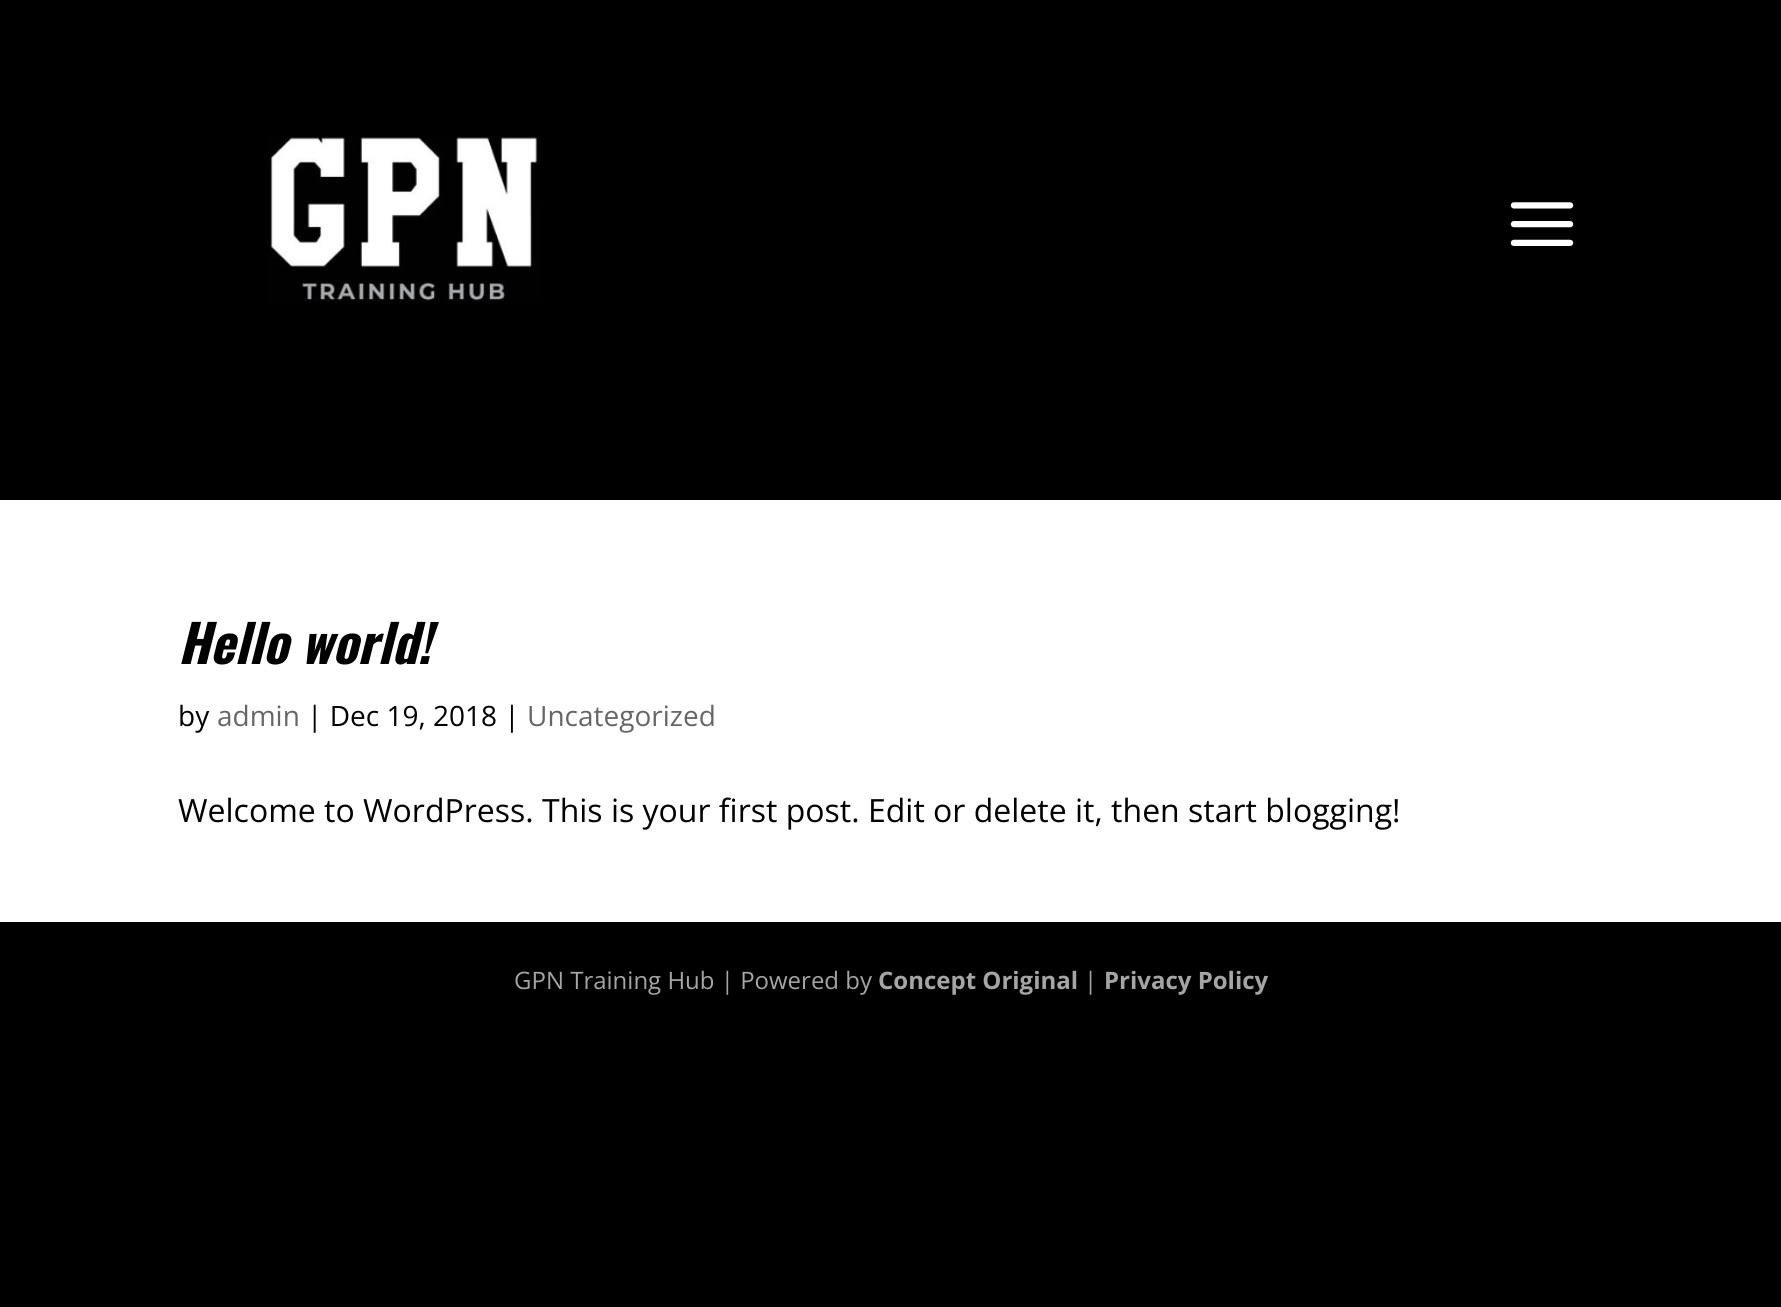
import math
import cairo


def paste(ctx, path, x, y, w, h):
	ctx.save()
	ctx.set_source_surface(cairo.ImageSurface.create_from_png(path), x, y)
	ctx.rectangle(x, y, w, h)
	ctx.fill()
	ctx.restore()

def draw(ctx):
	ctx.set_source_rgb(0, 0, 0)
	ctx.paint()
	paste(ctx, 'media/1.png', 268, 137, 273, 166)
	paste(ctx, 'media/2.png', 1510, 202, 64, 44)
	ctx.set_source_rgb(1, 1, 1)
	ctx.rectangle(0, 500, 1781, 422)
	ctx.fill()
	ctx.select_font_face('Oswald', cairo.FONT_SLANT_ITALIC, cairo.FONT_WEIGHT_BOLD)
	ctx.set_font_size(52)
	ctx.set_source_rgb(0, 0, 0)
	ctx.move_to(178, 664)
	ctx.show_text('Hello world!')
	ctx.select_font_face('Open Sans')
	ctx.set_font_size(28)
	ctx.move_to(178, 726)
	ctx.show_text('by')
	ctx.set_source_rgb(0.4, 0.4, 0.4)
	ctx.move_to(217, 726)
	ctx.show_text('admin')
	ctx.set_source_rgb(0, 0, 0)
	ctx.move_to(307, 726)
	ctx.show_text('| Dec 19, 2018 |')
	ctx.set_source_rgb(0.4, 0.4, 0.4)
	ctx.move_to(527, 726)
	ctx.show_text('Uncategorized')
	ctx.set_font_size(32)
	ctx.set_source_rgb(0, 0, 0)
	ctx.move_to(178, 822)
	ctx.show_text('Welcome to WordPress. This is your first post. Edit or delete it, then start blogging!')
	ctx.set_font_size(24)
	ctx.set_source_rgb(0.647, 0.647, 0.647)
	ctx.move_to(514, 989)
	ctx.show_text('GPN Training Hub | Powered by')
	ctx.select_font_face('Open Sans', cairo.FONT_SLANT_NORMAL, cairo.FONT_WEIGHT_BOLD)
	ctx.move_to(878, 989)
	ctx.show_text('Concept Original')
	ctx.select_font_face('Open Sans')
	ctx.move_to(1084, 989)
	ctx.show_text('|')
	ctx.select_font_face('Open Sans', cairo.FONT_SLANT_NORMAL, cairo.FONT_WEIGHT_BOLD)
	ctx.move_to(1104, 989)
	ctx.show_text('Privacy Policy')


surface = cairo.ImageSurface(cairo.FORMAT_RGB24, 1781, 1307)
ctx = cairo.Context(surface)
options = cairo.FontOptions()
options.set_hint_metrics(cairo.HINT_METRICS_OFF)
options.set_hint_style(cairo.HINT_STYLE_NONE)
ctx.set_font_options(options)
ctx.set_miter_limit(4)
draw(ctx)
surface.write_to_png('image.png')
